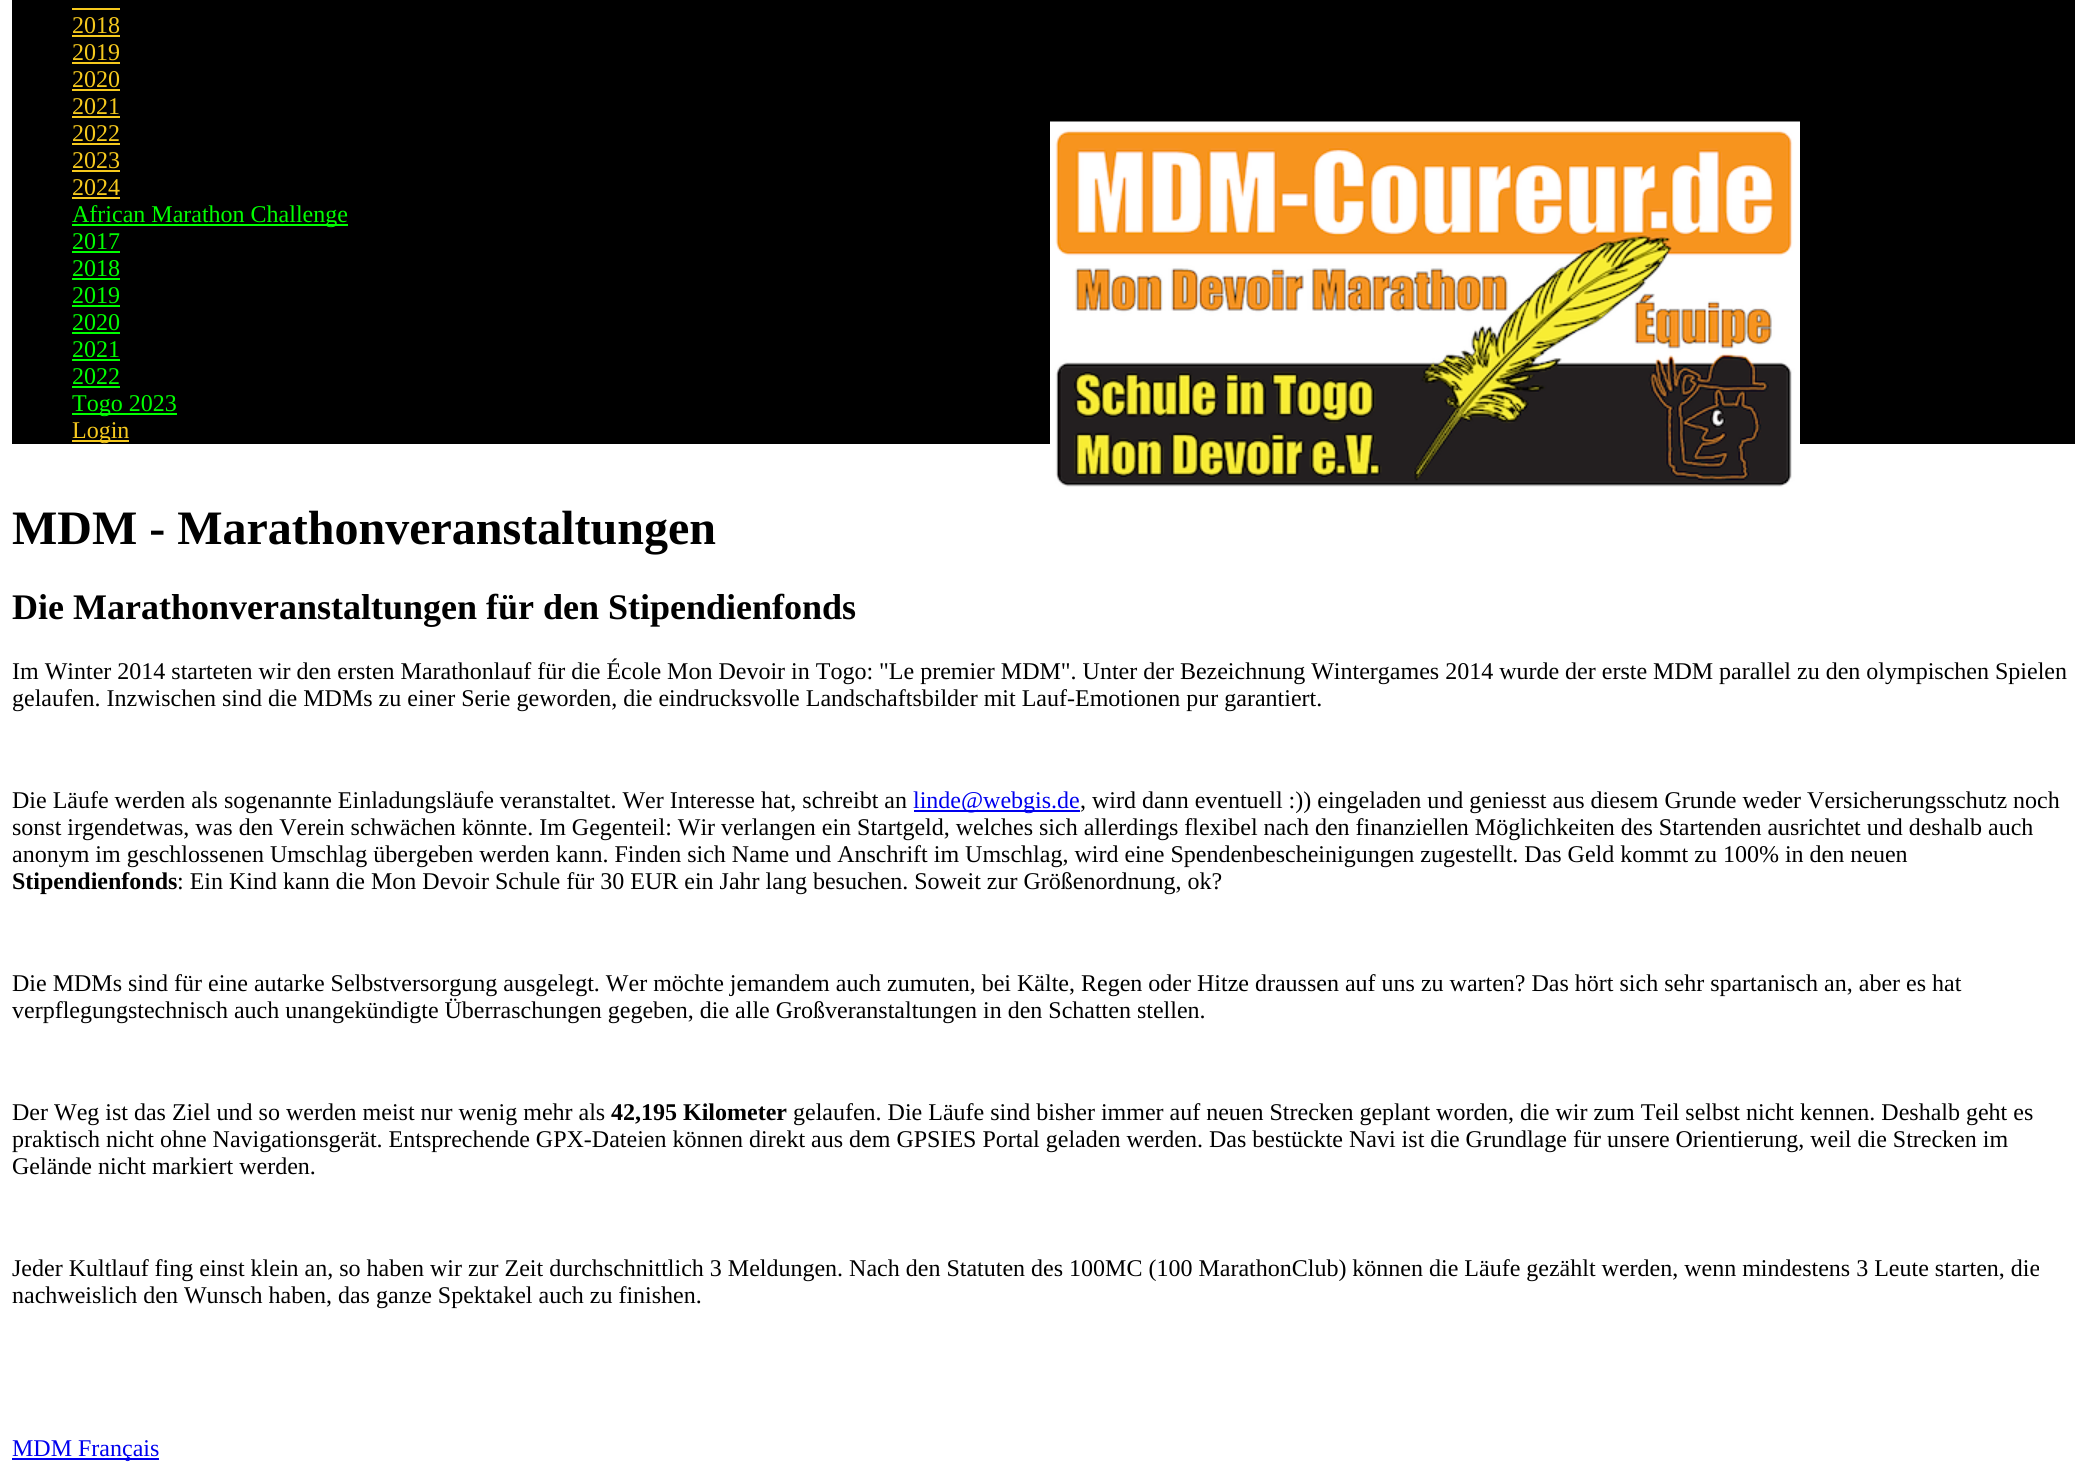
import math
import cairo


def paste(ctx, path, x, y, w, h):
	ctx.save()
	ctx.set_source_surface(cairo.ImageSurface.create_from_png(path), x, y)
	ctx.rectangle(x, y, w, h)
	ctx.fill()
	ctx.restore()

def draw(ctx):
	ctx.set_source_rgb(1, 1, 1)
	ctx.paint()
	ctx.set_source_rgb(0, 0, 0)
	ctx.rectangle(12, 0, 2063, 444)
	ctx.fill()
	ctx.set_source_rgb(0.961, 0.788, 0.114)
	ctx.rectangle(72, 8, 48, 2)
	ctx.fill()
	ctx.select_font_face('Liberation Serif')
	ctx.set_font_size(24)
	ctx.move_to(72, 33)
	ctx.show_text('2018')
	ctx.rectangle(72, 35, 48, 2)
	ctx.fill()
	ctx.move_to(72, 60)
	ctx.show_text('2019')
	ctx.rectangle(72, 62, 48, 2)
	ctx.fill()
	ctx.move_to(72, 87)
	ctx.show_text('2020')
	ctx.rectangle(72, 89, 48, 2)
	ctx.fill()
	ctx.move_to(72, 114)
	ctx.show_text('2021')
	ctx.rectangle(72, 116, 48, 2)
	ctx.fill()
	ctx.move_to(72, 141)
	ctx.show_text('2022')
	ctx.rectangle(72, 143, 48, 2)
	ctx.fill()
	ctx.move_to(72, 168)
	ctx.show_text('2023')
	ctx.rectangle(72, 170, 48, 2)
	ctx.fill()
	ctx.move_to(72, 195)
	ctx.show_text('2024')
	ctx.rectangle(72, 197, 48, 2)
	ctx.fill()
	ctx.set_source_rgb(0, 1, 0)
	ctx.rectangle(72, 224, 276, 2)
	ctx.fill()
	ctx.move_to(72, 222)
	ctx.show_text('African Marathon Challenge')
	ctx.move_to(72, 249)
	ctx.show_text('2017')
	ctx.rectangle(72, 251, 48, 2)
	ctx.fill()
	ctx.move_to(72, 276)
	ctx.show_text('2018')
	ctx.rectangle(72, 278, 48, 2)
	ctx.fill()
	ctx.move_to(72, 303)
	ctx.show_text('2019')
	ctx.rectangle(72, 305, 48, 2)
	ctx.fill()
	ctx.move_to(72, 330)
	ctx.show_text('2020')
	ctx.rectangle(72, 332, 48, 2)
	ctx.fill()
	ctx.move_to(72, 357)
	ctx.show_text('2021')
	ctx.rectangle(72, 359, 48, 2)
	ctx.fill()
	ctx.move_to(72, 384)
	ctx.show_text('2022')
	ctx.rectangle(72, 386, 48, 2)
	ctx.fill()
	ctx.rectangle(72, 413, 105, 2)
	ctx.fill()
	ctx.move_to(72, 411)
	ctx.show_text('Togo 2023')
	ctx.set_source_rgb(0.961, 0.788, 0.114)
	ctx.rectangle(72, 440, 57, 2)
	ctx.fill()
	ctx.move_to(72, 438)
	ctx.show_text('Login')
	paste(ctx, 'media/1.png', 1050, 121, 750, 366)
	ctx.select_font_face('Liberation Serif', cairo.FONT_SLANT_NORMAL, cairo.FONT_WEIGHT_BOLD)
	ctx.set_font_size(48)
	ctx.set_source_rgb(0, 0, 0)
	ctx.move_to(12, 544)
	ctx.show_text('MDM - Marathonveranstaltungen')
	ctx.set_font_size(36)
	ctx.move_to(12, 619)
	ctx.show_text('Die Marathonveranstaltungen für den Stipendienfonds')
	ctx.select_font_face('Liberation Serif')
	ctx.set_font_size(24)
	for x, y, s in [
		(12, 679, 'Im Winter 2014 starteten wir den ersten Marathonlauf für die École Mon Devoir in Togo: "Le premier MDM". Unter der Bezeichnung Wintergames 2014 wurde der erste MDM parallel zu den olympischen Spielen'),
		(12, 706, 'gelaufen. Inzwischen sind die MDMs zu einer Serie geworden, die eindrucksvolle Landschaftsbilder mit Lauf-Emotionen pur garantiert.'),
		(12, 808, 'Die Läufe werden als sogenannte Einladungsläufe veranstaltet. Wer Interesse hat, schreibt an'),
	]:
		ctx.move_to(x, y)
		ctx.show_text(s)
	ctx.set_source_rgb(0, 0, 0.933)
	ctx.rectangle(914, 810, 166, 2)
	ctx.fill()
	ctx.move_to(913, 808)
	ctx.show_text('linde@webgis.de')
	ctx.set_source_rgb(0, 0, 0)
	for x, y, s in [
		(1080, 808, ', wird dann eventuell :)) eingeladen und geniesst aus diesem Grunde weder Versicherungsschutz noch'),
		(12, 835, 'sonst irgendetwas, was den Verein schwächen könnte. Im Gegenteil: Wir verlangen ein Startgeld, welches sich allerdings flexibel nach den finanziellen Möglichkeiten des Startenden ausrichtet und deshalb auch'),
		(12, 862, 'anonym im geschlossenen Umschlag übergeben werden kann. Finden sich Name und Anschrift im Umschlag, wird eine Spendenbescheinigungen zugestellt. Das Geld kommt zu 100% in den neuen'),
	]:
		ctx.move_to(x, y)
		ctx.show_text(s)
	ctx.select_font_face('Liberation Serif', cairo.FONT_SLANT_NORMAL, cairo.FONT_WEIGHT_BOLD)
	ctx.move_to(12, 889)
	ctx.show_text('Stipendienfonds')
	ctx.select_font_face('Liberation Serif')
	for x, y, s in [
		(177, 889, ': Ein Kind kann die Mon Devoir Schule für 30 EUR ein Jahr lang besuchen. Soweit zur Größenordnung, ok?'),
		(12, 991, 'Die MDMs sind für eine autarke Selbstversorgung ausgelegt. Wer möchte jemandem auch zumuten, bei Kälte, Regen oder Hitze draussen auf uns zu warten? Das hört sich sehr spartanisch an, aber es hat'),
		(12, 1018, 'verpflegungstechnisch auch unangekündigte Überraschungen gegeben, die alle Großveranstaltungen in den Schatten stellen.'),
		(12, 1120, 'Der Weg ist das Ziel und so werden meist nur wenig mehr als'),
	]:
		ctx.move_to(x, y)
		ctx.show_text(s)
	ctx.select_font_face('Liberation Serif', cairo.FONT_SLANT_NORMAL, cairo.FONT_WEIGHT_BOLD)
	ctx.move_to(611, 1120)
	ctx.show_text('42,195 Kilometer')
	ctx.select_font_face('Liberation Serif')
	for x, y, s in [
		(793, 1120, 'gelaufen. Die Läufe sind bisher immer auf neuen Strecken geplant worden, die wir zum Teil selbst nicht kennen. Deshalb geht es'),
		(12, 1147, 'praktisch nicht ohne Navigationsgerät. Entsprechende GPX-Dateien können direkt aus dem GPSIES Portal geladen werden. Das bestückte Navi ist die Grundlage für unsere Orientierung, weil die Strecken im'),
		(12, 1174, 'Gelände nicht markiert werden.'),
		(12, 1276, 'Jeder Kultlauf fing einst klein an, so haben wir zur Zeit durchschnittlich 3 Meldungen. Nach den Statuten des 100MC (100 MarathonClub) können die Läufe gezählt werden, wenn mindestens 3 Leute starten, die'),
		(12, 1303, 'nachweislich den Wunsch haben, das ganze Spektakel auch zu finishen.'),
	]:
		ctx.move_to(x, y)
		ctx.show_text(s)
	ctx.set_source_rgb(0, 0, 0.933)
	ctx.rectangle(12, 1458, 147, 2)
	ctx.fill()
	ctx.move_to(12, 1456)
	ctx.show_text('MDM Français')


surface = cairo.ImageSurface(cairo.FORMAT_RGB24, 2086, 1464)
ctx = cairo.Context(surface)
options = cairo.FontOptions()
options.set_hint_metrics(cairo.HINT_METRICS_OFF)
options.set_hint_style(cairo.HINT_STYLE_NONE)
ctx.set_font_options(options)
ctx.set_miter_limit(4)
draw(ctx)
surface.write_to_png('image.png')
